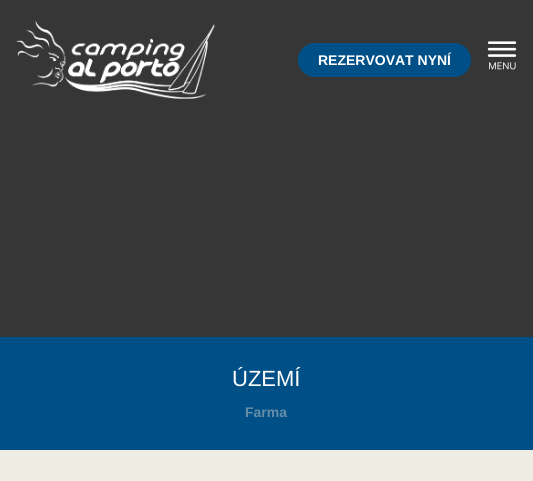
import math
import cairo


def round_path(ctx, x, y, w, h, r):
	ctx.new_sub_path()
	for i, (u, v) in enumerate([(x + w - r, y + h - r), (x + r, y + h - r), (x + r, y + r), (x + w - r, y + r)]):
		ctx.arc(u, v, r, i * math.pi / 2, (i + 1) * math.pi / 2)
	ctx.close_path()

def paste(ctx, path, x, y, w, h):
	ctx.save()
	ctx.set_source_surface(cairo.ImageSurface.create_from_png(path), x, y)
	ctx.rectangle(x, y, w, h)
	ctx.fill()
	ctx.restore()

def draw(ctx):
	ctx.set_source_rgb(0.937, 0.922, 0.89)
	ctx.paint()
	ctx.set_source_rgb(0.212, 0.212, 0.212)
	ctx.rectangle(0, 0, 533, 337)
	ctx.fill()
	paste(ctx, 'media/1.png', 16, 20, 200, 79)
	ctx.set_source_rgb(0, 0.314, 0.529)
	round_path(ctx, 298, 43, 173, 34, 17)
	ctx.fill()
	ctx.select_font_face('Liberation Sans', cairo.FONT_SLANT_NORMAL, cairo.FONT_WEIGHT_BOLD)
	ctx.set_font_size(14)
	ctx.set_source_rgb(1, 1, 1)
	ctx.move_to(318, 65)
	ctx.show_text('REZERVOVAT NYNÍ')
	paste(ctx, 'media/2.png', 487, 41, 30, 29)
	ctx.set_source_rgb(0, 0.314, 0.529)
	ctx.rectangle(0, 337, 533, 113)
	ctx.fill()
	ctx.select_font_face('Liberation Sans')
	ctx.set_font_size(22)
	ctx.set_source_rgb(1, 1, 1)
	ctx.move_to(232, 386)
	ctx.show_text('ÚZEMÍ')
	ctx.select_font_face('Liberation Sans', cairo.FONT_SLANT_NORMAL, cairo.FONT_WEIGHT_BOLD)
	ctx.set_font_size(14)
	ctx.set_source_rgb(0.396, 0.553, 0.663)
	ctx.move_to(245, 417)
	ctx.show_text('Farma')


surface = cairo.ImageSurface(cairo.FORMAT_RGB24, 533, 481)
ctx = cairo.Context(surface)
options = cairo.FontOptions()
options.set_hint_metrics(cairo.HINT_METRICS_OFF)
options.set_hint_style(cairo.HINT_STYLE_NONE)
ctx.set_font_options(options)
ctx.set_miter_limit(4)
draw(ctx)
surface.write_to_png('image.png')
